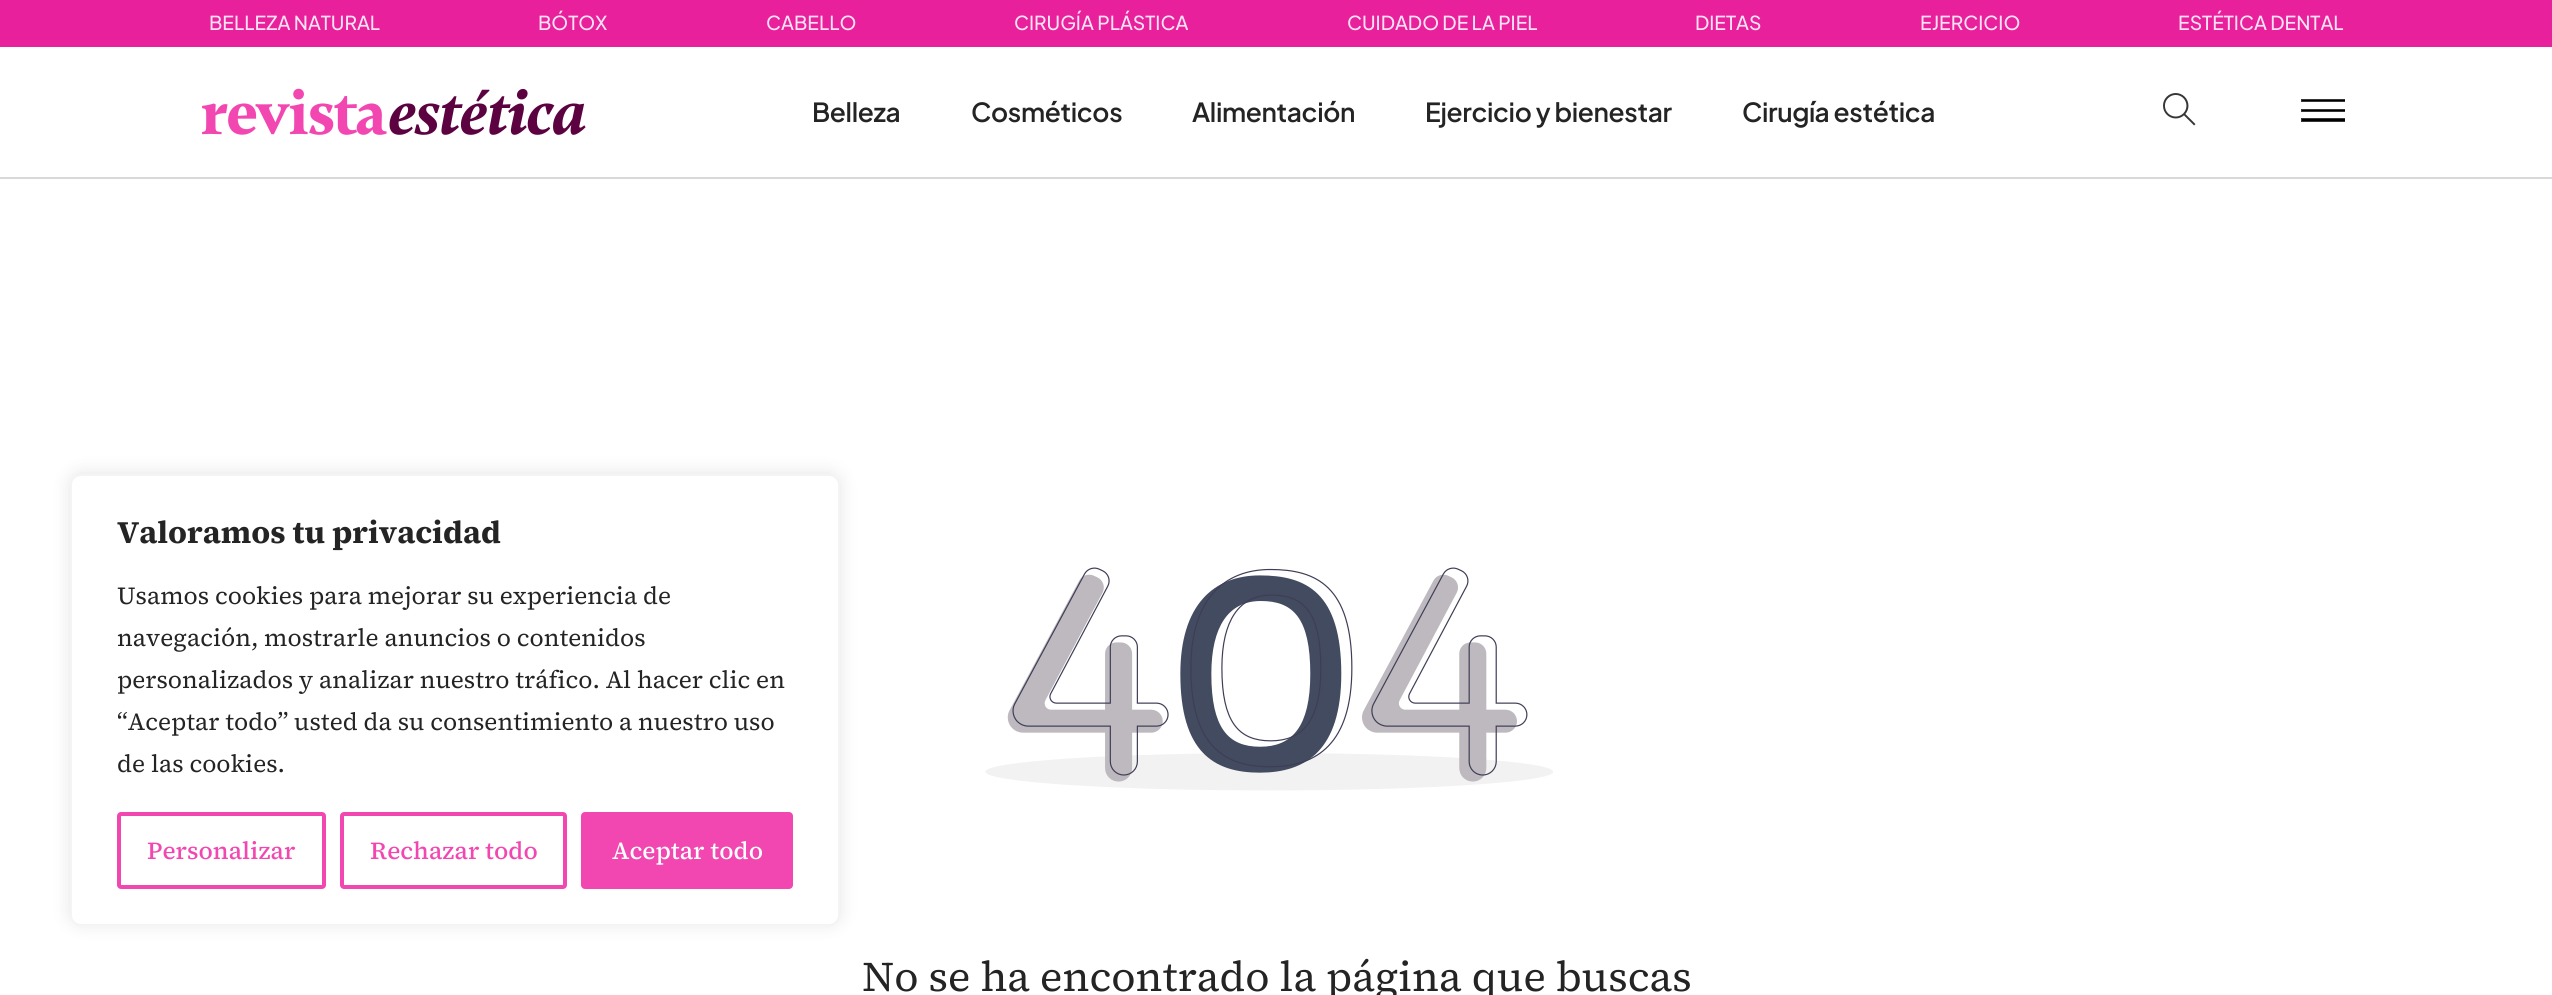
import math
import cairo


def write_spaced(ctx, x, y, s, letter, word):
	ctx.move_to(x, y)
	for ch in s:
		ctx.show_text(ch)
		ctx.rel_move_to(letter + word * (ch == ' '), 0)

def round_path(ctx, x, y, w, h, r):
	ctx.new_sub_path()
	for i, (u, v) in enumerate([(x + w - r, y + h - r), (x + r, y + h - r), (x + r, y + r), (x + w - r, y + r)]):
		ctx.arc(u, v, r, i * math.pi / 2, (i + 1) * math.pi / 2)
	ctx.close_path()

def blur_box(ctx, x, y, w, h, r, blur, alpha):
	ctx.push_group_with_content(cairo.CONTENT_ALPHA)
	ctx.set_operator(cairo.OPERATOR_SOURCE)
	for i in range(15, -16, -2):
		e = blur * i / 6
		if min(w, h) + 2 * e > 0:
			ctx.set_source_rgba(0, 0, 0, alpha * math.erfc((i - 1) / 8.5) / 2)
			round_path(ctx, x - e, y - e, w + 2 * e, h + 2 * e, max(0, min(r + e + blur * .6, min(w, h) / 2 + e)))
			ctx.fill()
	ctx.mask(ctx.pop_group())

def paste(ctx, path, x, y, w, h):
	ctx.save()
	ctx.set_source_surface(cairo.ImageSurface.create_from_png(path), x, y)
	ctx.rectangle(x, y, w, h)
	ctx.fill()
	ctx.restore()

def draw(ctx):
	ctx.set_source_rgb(1, 1, 1)
	ctx.paint()
	ctx.set_source_rgb(0.914, 0.125, 0.612)
	ctx.rectangle(0, 0, 2552, 47)
	ctx.fill()
	ctx.select_font_face('Plus Jakarta Sans Medium')
	ctx.set_font_size(19.25)
	ctx.set_source_rgb(0.988, 0.886, 0.949)
	for x, y, s in [
		(209, 30, 'BELLEZA NATURAL'),
		(538, 30, 'BÓTOX'),
		(766, 30, 'CABELLO'),
		(1014, 30, 'CIRUGÍA PLÁSTICA'),
		(1347, 30, 'CUIDADO DE LA PIEL'),
		(1695, 30, 'DIETAS'),
		(1920, 30, 'EJERCICIO'),
		(2178, 30, 'ESTÉTICA DENTAL'),
	]:
		ctx.move_to(x, y)
		ctx.show_text(s)
	ctx.set_source_rgb(0.851, 0.851, 0.851)
	ctx.rectangle(0, 177, 2552, 2)
	ctx.fill()
	paste(ctx, 'media/1.png', 202, 88, 384, 47)
	ctx.select_font_face('Plus Jakarta Sans SemiBold')
	ctx.set_font_size(26.25)
	ctx.set_source_rgb(0.141, 0.141, 0.141)
	for x, y, s in [
		(812, 122, 'Belleza'),
		(971, 122, 'Cosméticos'),
		(1192, 122, 'Alimentación'),
		(1425, 122, 'Ejercicio y bienestar'),
		(1742, 122, 'Cirugía estética'),
	]:
		write_spaced(ctx, x, y, s, -0.35, 0)
	paste(ctx, 'media/2.png', 2163, 93, 33, 33)
	ctx.set_source_rgb(0, 0, 0)
	ctx.rectangle(2301, 100, 44, 1)
	ctx.fill()
	ctx.save()
	ctx.rectangle(2301, 93, 44, 35)
	ctx.clip()
	ctx.rectangle(2301.5, 99.5, 44, 2)
	ctx.set_source_rgb(0.212, 0.212, 0.212)
	ctx.set_line_width(1)
	ctx.stroke()
	ctx.restore()
	ctx.rectangle(2301, 110, 44, 1)
	ctx.fill()
	ctx.save()
	ctx.rectangle(2301, 93, 44, 35)
	ctx.clip()
	ctx.rectangle(2301.5, 109.5, 44, 2)
	ctx.set_source_rgb(0.212, 0.212, 0.212)
	ctx.set_line_width(1)
	ctx.stroke()
	ctx.restore()
	ctx.rectangle(2301, 119, 44, 2)
	ctx.fill()
	ctx.save()
	ctx.rectangle(2301, 93, 44, 35)
	ctx.clip()
	ctx.rectangle(2301.5, 118.5, 44, 3)
	ctx.set_source_rgb(0.212, 0.212, 0.212)
	ctx.set_line_width(1)
	ctx.stroke()
	ctx.restore()
	ctx.set_source_rgb(0.675, 0.671, 0.671)
	blur_box(ctx, 70, 473, 770, 451, 11, 9, 0.3)
	ctx.set_source_rgb(1, 1, 1)
	round_path(ctx, 71, 475, 768, 450, 10)
	ctx.fill_preserve()
	ctx.set_source_rgb(0.957, 0.957, 0.957)
	ctx.stroke()
	ctx.select_font_face('Source Serif 4', cairo.FONT_SLANT_NORMAL, cairo.FONT_WEIGHT_BOLD)
	ctx.set_font_size(31.5)
	ctx.set_source_rgb(0.141, 0.141, 0.141)
	ctx.move_to(117, 543)
	ctx.show_text('Valoramos tu privacidad')
	ctx.select_font_face('Source Serif 4')
	ctx.set_font_size(24.5)
	for x, y, s in [
		(117, 604, 'Usamos cookies para mejorar su experiencia de'),
		(117, 646, 'navegación, mostrarle anuncios o contenidos'),
		(117, 688, 'personalizados y analizar nuestro tráfico. Al hacer clic en'),
		(117, 730, '“Aceptar todo” usted da su consentimiento a nuestro uso'),
		(117, 772, 'de las cookies.'),
	]:
		ctx.move_to(x, y)
		ctx.show_text(s)
	round_path(ctx, 119, 814, 205, 73, 2)
	ctx.set_source_rgb(0.949, 0.278, 0.694)
	ctx.set_line_width(4)
	ctx.stroke()
	ctx.select_font_face('Source Serif 4 Medium')
	ctx.move_to(147, 859)
	ctx.show_text('Personalizar')
	round_path(ctx, 342, 814, 223, 73, 2)
	ctx.stroke()
	ctx.move_to(370, 859)
	ctx.show_text('Rechazar todo')
	round_path(ctx, 583, 814, 208, 73, 2)
	ctx.fill_preserve()
	ctx.stroke()
	ctx.set_source_rgb(1, 1, 1)
	ctx.move_to(612, 859)
	ctx.show_text('Aceptar todo')
	paste(ctx, 'media/3.png', 985, 567, 568, 224)
	ctx.select_font_face('Source Serif 4')
	ctx.set_font_size(42)
	ctx.set_source_rgb(0.141, 0.141, 0.141)
	ctx.move_to(862, 991)
	ctx.show_text('No se ha encontrado la página que buscas')


surface = cairo.ImageSurface(cairo.FORMAT_RGB24, 2552, 995)
ctx = cairo.Context(surface)
options = cairo.FontOptions()
options.set_hint_metrics(cairo.HINT_METRICS_OFF)
options.set_hint_style(cairo.HINT_STYLE_NONE)
ctx.set_font_options(options)
ctx.set_miter_limit(4)
draw(ctx)
surface.write_to_png('image.png')
